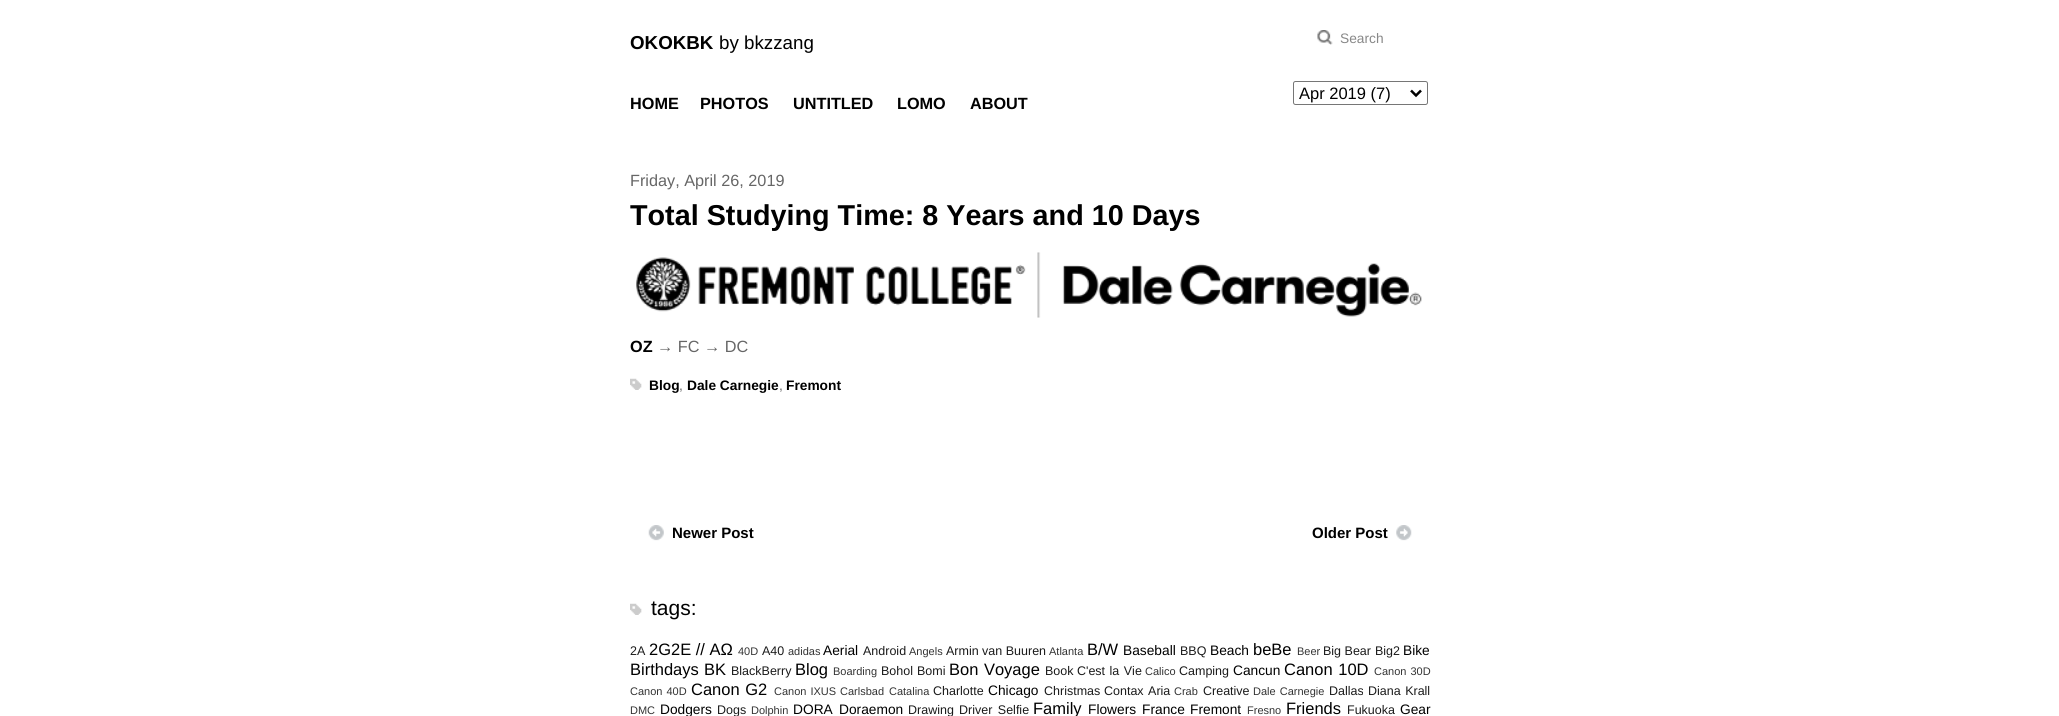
import math
import cairo


def write_spaced(ctx, x, y, s, letter, word):
	ctx.move_to(x, y)
	for ch in s:
		ctx.show_text(ch)
		ctx.rel_move_to(letter + word * (ch == ' '), 0)

def round_path(ctx, x, y, w, h, r):
	ctx.new_sub_path()
	for i, (u, v) in enumerate([(x + w - r, y + h - r), (x + r, y + h - r), (x + r, y + r), (x + w - r, y + r)]):
		ctx.arc(u, v, r, i * math.pi / 2, (i + 1) * math.pi / 2)
	ctx.close_path()

def paste(ctx, path, x, y, w, h):
	ctx.save()
	ctx.set_source_surface(cairo.ImageSurface.create_from_png(path), x, y)
	ctx.rectangle(x, y, w, h)
	ctx.fill()
	ctx.restore()

def draw(ctx):
	ctx.set_source_rgb(1, 1, 1)
	ctx.paint()
	ctx.select_font_face('Liberation Sans', cairo.FONT_SLANT_NORMAL, cairo.FONT_WEIGHT_BOLD)
	ctx.set_font_size(18.75)
	ctx.set_source_rgb(0, 0, 0)
	ctx.move_to(630, 49)
	ctx.show_text('OKOKBK')
	ctx.select_font_face('Liberation Sans')
	ctx.move_to(719, 49)
	ctx.show_text('by bkzzang')
	paste(ctx, 'media/1.png', 1317, 30, 16, 15)
	ctx.set_font_size(13.75)
	ctx.set_source_rgb(0.533, 0.533, 0.533)
	ctx.move_to(1340, 43)
	ctx.show_text('Search')
	ctx.select_font_face('Liberation Sans', cairo.FONT_SLANT_NORMAL, cairo.FONT_WEIGHT_BOLD)
	ctx.set_font_size(16.25)
	ctx.set_source_rgb(0, 0, 0)
	for x, y, s in [
		(630, 109, 'HOME'),
		(700, 109, 'PHOTOS'),
		(793, 109, 'UNTITLED'),
		(897, 109, 'LOMO'),
		(970, 109, 'ABOUT'),
	]:
		ctx.move_to(x, y)
		ctx.show_text(s)
	round_path(ctx, 1293.5, 81.5, 134, 23, 2)
	ctx.set_source_rgb(0.463, 0.463, 0.463)
	ctx.set_line_width(1)
	ctx.stroke()
	ctx.new_path()
	ctx.move_to(1411, 90.5)
	ctx.line_to(1416, 95.5)
	ctx.line_to(1421, 90.5)
	ctx.set_source_rgb(0, 0, 0)
	ctx.set_line_width(2.5)
	ctx.stroke()
	ctx.select_font_face('Liberation Sans')
	ctx.set_font_size(16.5)
	ctx.move_to(1299, 99)
	ctx.show_text('Apr 2019 (7)')
	ctx.set_font_size(16.25)
	ctx.set_source_rgb(0.4, 0.4, 0.4)
	ctx.move_to(630, 186)
	ctx.show_text('Friday, April 26, 2019')
	ctx.select_font_face('Liberation Sans', cairo.FONT_SLANT_NORMAL, cairo.FONT_WEIGHT_BOLD)
	ctx.set_font_size(28.75)
	ctx.set_source_rgb(0, 0, 0)
	ctx.move_to(630, 225)
	ctx.show_text('Total Studying Time: 8 Years and 10 Days')
	paste(ctx, 'media/2.png', 636, 252, 786, 66)
	ctx.set_font_size(16.25)
	ctx.move_to(630, 352)
	ctx.show_text('OZ')
	ctx.select_font_face('Liberation Sans')
	ctx.set_source_rgb(0.4, 0.4, 0.4)
	ctx.move_to(657, 352)
	ctx.show_text('→ FC → DC')
	paste(ctx, 'media/3.png', 630, 378, 12, 12)
	ctx.select_font_face('Liberation Sans', cairo.FONT_SLANT_NORMAL, cairo.FONT_WEIGHT_BOLD)
	ctx.set_font_size(13.75)
	ctx.set_source_rgb(0, 0, 0)
	ctx.move_to(649, 390)
	ctx.show_text('Blog')
	ctx.select_font_face('Liberation Sans')
	ctx.set_source_rgb(0.4, 0.4, 0.4)
	ctx.move_to(679, 390)
	ctx.show_text(',')
	ctx.select_font_face('Liberation Sans', cairo.FONT_SLANT_NORMAL, cairo.FONT_WEIGHT_BOLD)
	ctx.set_source_rgb(0, 0, 0)
	ctx.move_to(687, 390)
	ctx.show_text('Dale Carnegie')
	ctx.select_font_face('Liberation Sans')
	ctx.set_source_rgb(0.4, 0.4, 0.4)
	ctx.move_to(779, 390)
	ctx.show_text(',')
	ctx.select_font_face('Liberation Sans', cairo.FONT_SLANT_NORMAL, cairo.FONT_WEIGHT_BOLD)
	ctx.set_source_rgb(0, 0, 0)
	ctx.move_to(786, 390)
	ctx.show_text('Fremont')
	paste(ctx, 'media/4.png', 648, 525, 16, 16)
	ctx.set_font_size(15)
	ctx.move_to(672, 538)
	ctx.show_text('Newer Post')
	ctx.move_to(1312, 538)
	ctx.show_text('Older Post')
	paste(ctx, 'media/5.png', 1396, 525, 16, 16)
	paste(ctx, 'media/3.png', 630, 603, 12, 12)
	ctx.select_font_face('Liberation Sans')
	ctx.set_font_size(21)
	ctx.move_to(651, 615)
	ctx.show_text('tags:')
	ctx.set_font_size(12.5)
	ctx.set_source_rgb(0.102, 0.102, 0.102)
	ctx.move_to(630, 655)
	ctx.show_text('2A')
	ctx.set_font_size(16.5)
	ctx.set_source_rgb(0, 0, 0)
	ctx.move_to(649, 655)
	ctx.show_text('2G2E // ΑΩ')
	ctx.set_font_size(11)
	ctx.set_source_rgb(0.2, 0.2, 0.2)
	ctx.move_to(738, 655)
	ctx.show_text('40D')
	ctx.set_font_size(12.5)
	ctx.set_source_rgb(0.102, 0.102, 0.102)
	ctx.move_to(762, 655)
	ctx.show_text('A40')
	ctx.set_font_size(11)
	ctx.set_source_rgb(0.2, 0.2, 0.2)
	ctx.move_to(788, 655)
	ctx.show_text('adidas')
	ctx.set_font_size(13.75)
	ctx.set_source_rgb(0, 0, 0)
	ctx.move_to(823, 655)
	ctx.show_text('Aerial')
	ctx.set_font_size(12.5)
	ctx.set_source_rgb(0.102, 0.102, 0.102)
	ctx.move_to(863, 655)
	ctx.show_text('Android')
	ctx.set_font_size(11)
	ctx.set_source_rgb(0.2, 0.2, 0.2)
	ctx.move_to(909, 655)
	ctx.show_text('Angels')
	ctx.set_font_size(12.5)
	ctx.set_source_rgb(0.102, 0.102, 0.102)
	ctx.move_to(946, 655)
	ctx.show_text('Armin van Buuren')
	ctx.set_font_size(11)
	ctx.set_source_rgb(0.2, 0.2, 0.2)
	ctx.move_to(1049, 655)
	ctx.show_text('Atlanta')
	ctx.set_font_size(16.5)
	ctx.set_source_rgb(0, 0, 0)
	ctx.move_to(1087, 655)
	ctx.show_text('B/W')
	ctx.set_font_size(13.75)
	ctx.move_to(1123, 655)
	ctx.show_text('Baseball')
	ctx.set_font_size(12.5)
	ctx.set_source_rgb(0.102, 0.102, 0.102)
	ctx.move_to(1180, 655)
	ctx.show_text('BBQ')
	ctx.set_font_size(13.75)
	ctx.set_source_rgb(0, 0, 0)
	ctx.move_to(1210, 655)
	ctx.show_text('Beach')
	ctx.set_font_size(16.5)
	ctx.move_to(1253, 655)
	ctx.show_text('beBe')
	ctx.set_font_size(11)
	ctx.set_source_rgb(0.2, 0.2, 0.2)
	ctx.move_to(1297, 655)
	ctx.show_text('Beer')
	ctx.set_font_size(12.5)
	ctx.set_source_rgb(0.102, 0.102, 0.102)
	ctx.move_to(1323, 655)
	ctx.show_text('Big Bear')
	ctx.move_to(1375, 655)
	ctx.show_text('Big2')
	ctx.set_font_size(13.75)
	ctx.set_source_rgb(0, 0, 0)
	ctx.move_to(1403, 655)
	ctx.show_text('Bike')
	ctx.set_font_size(16.5)
	ctx.move_to(630, 675)
	ctx.show_text('Birthdays')
	ctx.move_to(704, 675)
	ctx.show_text('BK')
	ctx.set_font_size(12.5)
	ctx.set_source_rgb(0.102, 0.102, 0.102)
	ctx.move_to(731, 675)
	ctx.show_text('BlackBerry')
	ctx.set_font_size(16.5)
	ctx.set_source_rgb(0, 0, 0)
	ctx.move_to(795, 675)
	ctx.show_text('Blog')
	ctx.set_font_size(11)
	ctx.set_source_rgb(0.2, 0.2, 0.2)
	ctx.move_to(833, 675)
	ctx.show_text('Boarding')
	ctx.set_font_size(12.5)
	ctx.set_source_rgb(0.102, 0.102, 0.102)
	ctx.move_to(881, 675)
	ctx.show_text('Bohol')
	ctx.move_to(917, 675)
	ctx.show_text('Bomi')
	ctx.set_font_size(16.5)
	ctx.set_source_rgb(0, 0, 0)
	write_spaced(ctx, 949, 675, 'Bon Voyage', 0, 1)
	ctx.set_font_size(12.5)
	ctx.set_source_rgb(0.102, 0.102, 0.102)
	ctx.move_to(1045, 675)
	ctx.show_text('Book')
	write_spaced(ctx, 1077, 675, 'C\'est la Vie', 0, 1)
	ctx.set_font_size(11)
	ctx.set_source_rgb(0.2, 0.2, 0.2)
	ctx.move_to(1145, 675)
	ctx.show_text('Calico')
	ctx.set_font_size(12.5)
	ctx.set_source_rgb(0.102, 0.102, 0.102)
	ctx.move_to(1179, 675)
	ctx.show_text('Camping')
	ctx.set_font_size(13.75)
	ctx.set_source_rgb(0, 0, 0)
	ctx.move_to(1233, 675)
	ctx.show_text('Cancun')
	ctx.set_font_size(16.5)
	write_spaced(ctx, 1284, 675, 'Canon 10D', 0, 1)
	ctx.set_font_size(11)
	ctx.set_source_rgb(0.2, 0.2, 0.2)
	write_spaced(ctx, 1374, 675, 'Canon 30D', 0, 1)
	write_spaced(ctx, 630, 695, 'Canon 40D', 0, 1)
	ctx.set_font_size(16.5)
	ctx.set_source_rgb(0, 0, 0)
	write_spaced(ctx, 691, 695, 'Canon G2', 0, 1)
	ctx.set_font_size(11)
	ctx.set_source_rgb(0.2, 0.2, 0.2)
	write_spaced(ctx, 774, 695, 'Canon IXUS', 0, 1)
	ctx.move_to(840, 695)
	ctx.show_text('Carlsbad')
	ctx.move_to(889, 695)
	ctx.show_text('Catalina')
	ctx.set_font_size(12.5)
	ctx.set_source_rgb(0.102, 0.102, 0.102)
	ctx.move_to(933, 695)
	ctx.show_text('Charlotte')
	ctx.set_font_size(13.75)
	ctx.set_source_rgb(0, 0, 0)
	ctx.move_to(988, 695)
	ctx.show_text('Chicago')
	ctx.set_font_size(12.5)
	ctx.set_source_rgb(0.102, 0.102, 0.102)
	ctx.move_to(1044, 695)
	ctx.show_text('Christmas')
	write_spaced(ctx, 1104, 695, 'Contax Aria', 0, 1)
	ctx.set_font_size(11)
	ctx.set_source_rgb(0.2, 0.2, 0.2)
	ctx.move_to(1174, 695)
	ctx.show_text('Crab')
	ctx.set_font_size(12.5)
	ctx.set_source_rgb(0.102, 0.102, 0.102)
	ctx.move_to(1203, 695)
	ctx.show_text('Creative')
	ctx.set_font_size(11)
	ctx.set_source_rgb(0.2, 0.2, 0.2)
	write_spaced(ctx, 1253, 695, 'Dale Carnegie', 0, 1)
	ctx.set_font_size(12.5)
	ctx.set_source_rgb(0.102, 0.102, 0.102)
	ctx.move_to(1329, 695)
	ctx.show_text('Dallas')
	write_spaced(ctx, 1368, 695, 'Diana Krall', 0, 1)
	ctx.set_font_size(11)
	ctx.set_source_rgb(0.2, 0.2, 0.2)
	ctx.move_to(630, 714)
	ctx.show_text('DMC')
	ctx.set_font_size(13.75)
	ctx.set_source_rgb(0, 0, 0)
	ctx.move_to(660, 714)
	ctx.show_text('Dodgers')
	ctx.set_font_size(12.5)
	ctx.set_source_rgb(0.102, 0.102, 0.102)
	ctx.move_to(717, 714)
	ctx.show_text('Dogs')
	ctx.set_font_size(11)
	ctx.set_source_rgb(0.2, 0.2, 0.2)
	ctx.move_to(751, 714)
	ctx.show_text('Dolphin')
	ctx.set_font_size(13.75)
	ctx.set_source_rgb(0, 0, 0)
	ctx.move_to(793, 714)
	ctx.show_text('DORA')
	ctx.move_to(839, 714)
	ctx.show_text('Doraemon')
	ctx.set_font_size(12.5)
	ctx.set_source_rgb(0.102, 0.102, 0.102)
	ctx.move_to(908, 714)
	ctx.show_text('Drawing')
	write_spaced(ctx, 959, 714, 'Driver Selfie', 0, 2)
	ctx.set_font_size(16.5)
	ctx.set_source_rgb(0, 0, 0)
	ctx.move_to(1033, 714)
	ctx.show_text('Family')
	ctx.set_font_size(13.75)
	for x, y, s in [
		(1088, 714, 'Flowers'),
		(1142, 714, 'France'),
		(1190, 714, 'Fremont'),
	]:
		ctx.move_to(x, y)
		ctx.show_text(s)
	ctx.set_font_size(11)
	ctx.set_source_rgb(0.2, 0.2, 0.2)
	ctx.move_to(1247, 714)
	ctx.show_text('Fresno')
	ctx.set_font_size(16.5)
	ctx.set_source_rgb(0, 0, 0)
	ctx.move_to(1286, 714)
	ctx.show_text('Friends')
	ctx.set_font_size(12.5)
	ctx.set_source_rgb(0.102, 0.102, 0.102)
	ctx.move_to(1347, 714)
	ctx.show_text('Fukuoka')
	ctx.set_font_size(13.75)
	ctx.set_source_rgb(0, 0, 0)
	ctx.move_to(1400, 714)
	ctx.show_text('Gear')


surface = cairo.ImageSurface(cairo.FORMAT_RGB24, 2059, 716)
ctx = cairo.Context(surface)
options = cairo.FontOptions()
options.set_hint_metrics(cairo.HINT_METRICS_OFF)
options.set_hint_style(cairo.HINT_STYLE_NONE)
ctx.set_font_options(options)
ctx.set_miter_limit(4)
draw(ctx)
surface.write_to_png('image.png')
